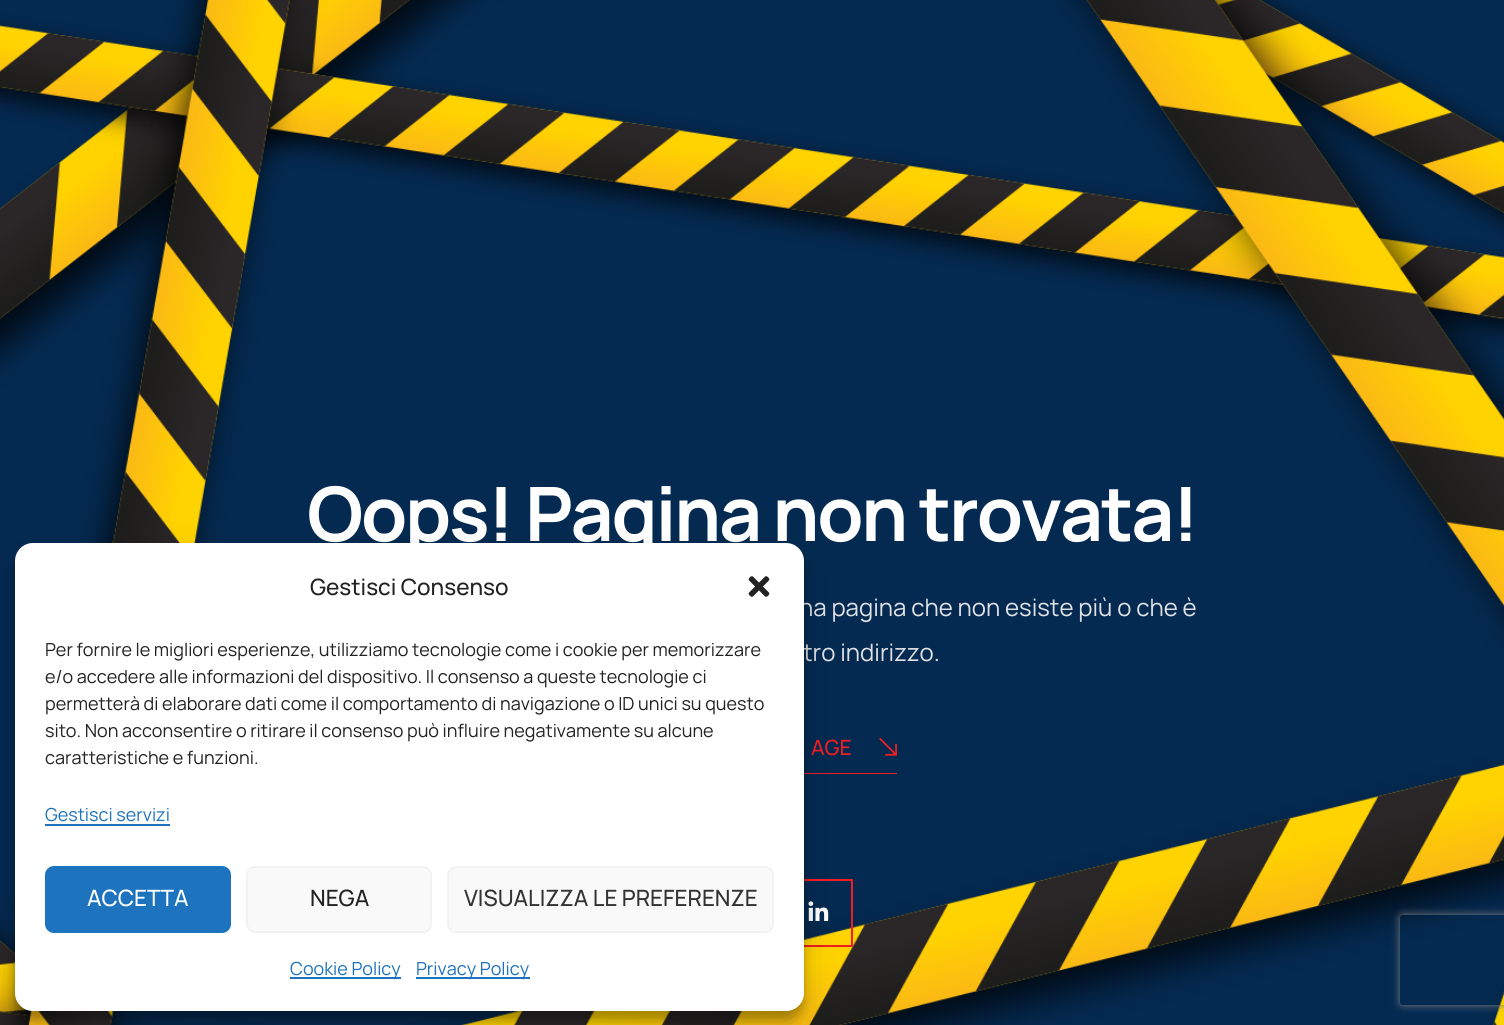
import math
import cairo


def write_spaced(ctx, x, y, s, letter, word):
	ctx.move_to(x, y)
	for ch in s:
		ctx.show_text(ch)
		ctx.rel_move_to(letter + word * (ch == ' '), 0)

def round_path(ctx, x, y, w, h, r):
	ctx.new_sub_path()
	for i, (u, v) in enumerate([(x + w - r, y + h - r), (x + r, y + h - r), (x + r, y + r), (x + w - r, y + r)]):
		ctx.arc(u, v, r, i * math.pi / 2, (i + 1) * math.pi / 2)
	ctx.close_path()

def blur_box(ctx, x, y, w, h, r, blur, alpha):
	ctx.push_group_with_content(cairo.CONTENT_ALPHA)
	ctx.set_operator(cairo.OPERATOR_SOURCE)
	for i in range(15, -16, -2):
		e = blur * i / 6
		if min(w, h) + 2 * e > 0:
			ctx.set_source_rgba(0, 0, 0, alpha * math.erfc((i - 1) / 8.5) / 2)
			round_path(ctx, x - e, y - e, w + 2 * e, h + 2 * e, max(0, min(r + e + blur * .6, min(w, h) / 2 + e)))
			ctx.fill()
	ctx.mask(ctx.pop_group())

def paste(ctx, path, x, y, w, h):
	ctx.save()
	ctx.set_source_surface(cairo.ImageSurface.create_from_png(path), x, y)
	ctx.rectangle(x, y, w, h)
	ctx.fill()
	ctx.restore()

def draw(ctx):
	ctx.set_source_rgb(0.016, 0.165, 0.318)
	ctx.paint()
	paste(ctx, 'media/1.png', 0, 0, 1504, 1025)
	ctx.select_font_face('Manrope', cairo.FONT_SLANT_NORMAL, cairo.FONT_WEIGHT_BOLD)
	ctx.set_font_size(75)
	ctx.set_source_rgb(1, 1, 1)
	write_spaced(ctx, 307, 541, 'Oops! Pagina non trovata!', -2.25, 0)
	ctx.select_font_face('Manrope')
	ctx.set_font_size(24)
	ctx.set_source_rgb(0.878, 0.882, 0.894)
	ctx.move_to(799, 616)
	ctx.show_text('na pagina che non esiste più o che è')
	ctx.move_to(803, 661)
	ctx.show_text('tro indirizzo.')
	ctx.set_source_rgb(0.933, 0.118, 0.137)
	ctx.rectangle(804, 773, 93, 1)
	ctx.fill()
	ctx.select_font_face('Manrope Medium')
	ctx.set_font_size(21)
	ctx.move_to(811, 755)
	ctx.show_text('AGE')
	paste(ctx, 'media/2.png', 879, 737, 18, 19)
	ctx.rectangle(804, 879, 48, 2)
	ctx.rectangle(851, 879, 2, 68)
	ctx.rectangle(804, 945, 48, 2)
	ctx.fill()
	paste(ctx, 'media/3.png', 808, 901, 21, 20)
	ctx.set_source_rgb(0, 0, 0)
	blur_box(ctx, 15, 552, 789, 468, 18, 4.5, 0.23)
	blur_box(ctx, 15, 558, 789, 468, 18, 15, 0.19)
	ctx.set_source_rgb(1, 1, 1)
	round_path(ctx, 15, 543, 789, 468, 18)
	ctx.fill()
	ctx.set_font_size(22.5)
	ctx.set_source_rgb(0.133, 0.133, 0.133)
	ctx.move_to(310, 595)
	ctx.show_text('Gestisci Consenso')
	paste(ctx, 'media/4.png', 748, 576, 22, 21)
	ctx.select_font_face('Manrope')
	ctx.set_font_size(18)
	for x, y, s in [
		(45, 656, 'Per fornire le migliori esperienze, utilizziamo tecnologie come i cookie per memorizzare'),
		(45, 683, 'e/o accedere alle informazioni del dispositivo. Il consenso a queste tecnologie ci'),
		(45, 710, 'permetterà di elaborare dati come il comportamento di navigazione o ID unici su questo'),
		(45, 737, 'sito. Non acconsentire o ritirare il consenso può influire negativamente su alcune'),
		(45, 764, 'caratteristiche e funzioni.'),
	]:
		ctx.move_to(x, y)
		ctx.show_text(s)
	ctx.set_source_rgb(0.118, 0.451, 0.745)
	ctx.move_to(45, 821)
	ctx.show_text('Gestisci servizi')
	ctx.rectangle(45, 824, 125, 2)
	ctx.fill()
	round_path(ctx, 46, 867, 184, 65, 8)
	ctx.fill_preserve()
	ctx.stroke()
	ctx.select_font_face('Manrope Medium')
	ctx.set_font_size(22.5)
	ctx.set_source_rgb(1, 1, 1)
	ctx.move_to(87, 906)
	ctx.show_text('ACCETTA')
	ctx.set_source_rgb(0.976, 0.976, 0.976)
	round_path(ctx, 247, 867, 184, 65, 8)
	ctx.fill_preserve()
	ctx.set_source_rgb(0.949, 0.949, 0.949)
	ctx.stroke()
	ctx.set_source_rgb(0.133, 0.133, 0.133)
	ctx.move_to(310, 906)
	ctx.show_text('NEGA')
	ctx.set_source_rgb(0.976, 0.976, 0.976)
	round_path(ctx, 448, 867, 325, 65, 8)
	ctx.fill_preserve()
	ctx.set_source_rgb(0.949, 0.949, 0.949)
	ctx.stroke()
	ctx.set_source_rgb(0.2, 0.2, 0.2)
	ctx.move_to(464, 906)
	ctx.show_text('VISUALIZZA LE PREFERENZE')
	ctx.set_source_rgb(0.118, 0.451, 0.745)
	ctx.rectangle(290, 977, 111, 2)
	ctx.fill()
	ctx.select_font_face('Manrope')
	ctx.set_font_size(18)
	ctx.move_to(290, 975)
	ctx.show_text('Cookie Policy')
	ctx.rectangle(416, 977, 114, 2)
	ctx.fill()
	ctx.move_to(416, 975)
	ctx.show_text('Privacy Policy')
	ctx.save()
	ctx.set_fill_rule(cairo.FILL_RULE_EVEN_ODD)
	ctx.new_path()
	ctx.move_to(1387, 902)
	ctx.line_to(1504, 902)
	ctx.line_to(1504, 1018)
	ctx.line_to(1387, 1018)
	ctx.close_path()
	ctx.move_to(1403, 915)
	ctx.line_to(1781, 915)
	ctx.curve_to(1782.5, 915, 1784, 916.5, 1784, 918)
	ctx.line_to(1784, 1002)
	ctx.curve_to(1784, 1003.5, 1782.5, 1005, 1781, 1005)
	ctx.line_to(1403, 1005)
	ctx.curve_to(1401.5, 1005, 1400, 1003.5, 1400, 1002)
	ctx.line_to(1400, 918)
	ctx.curve_to(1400, 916.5, 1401.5, 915, 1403, 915)
	ctx.close_path()
	ctx.clip()
	ctx.set_source_rgb(0.502, 0.502, 0.502)
	blur_box(ctx, 1400, 915, 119, 90, 3, 4, 1)
	ctx.restore()


surface = cairo.ImageSurface(cairo.FORMAT_RGB24, 1504, 1025)
ctx = cairo.Context(surface)
options = cairo.FontOptions()
options.set_hint_metrics(cairo.HINT_METRICS_OFF)
options.set_hint_style(cairo.HINT_STYLE_NONE)
ctx.set_font_options(options)
ctx.set_miter_limit(4)
draw(ctx)
surface.write_to_png('image.png')
